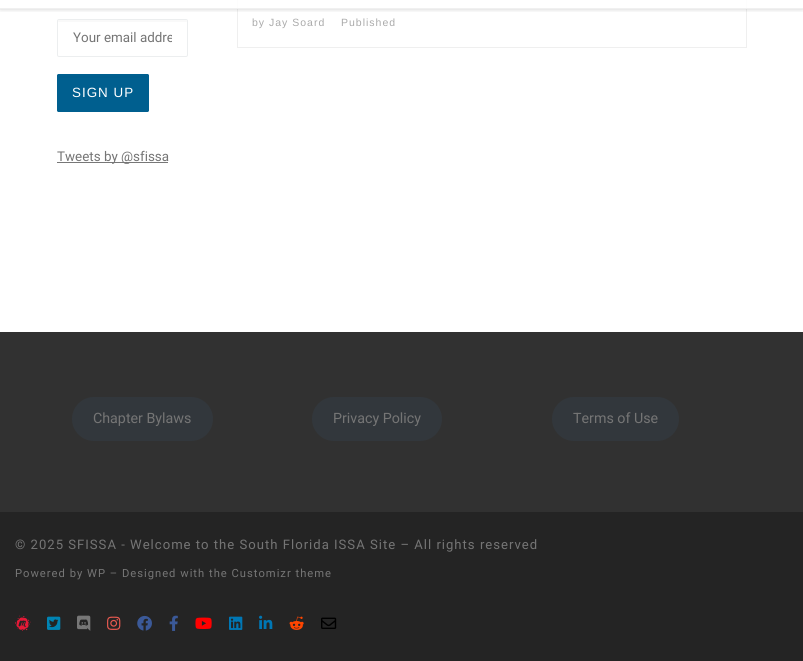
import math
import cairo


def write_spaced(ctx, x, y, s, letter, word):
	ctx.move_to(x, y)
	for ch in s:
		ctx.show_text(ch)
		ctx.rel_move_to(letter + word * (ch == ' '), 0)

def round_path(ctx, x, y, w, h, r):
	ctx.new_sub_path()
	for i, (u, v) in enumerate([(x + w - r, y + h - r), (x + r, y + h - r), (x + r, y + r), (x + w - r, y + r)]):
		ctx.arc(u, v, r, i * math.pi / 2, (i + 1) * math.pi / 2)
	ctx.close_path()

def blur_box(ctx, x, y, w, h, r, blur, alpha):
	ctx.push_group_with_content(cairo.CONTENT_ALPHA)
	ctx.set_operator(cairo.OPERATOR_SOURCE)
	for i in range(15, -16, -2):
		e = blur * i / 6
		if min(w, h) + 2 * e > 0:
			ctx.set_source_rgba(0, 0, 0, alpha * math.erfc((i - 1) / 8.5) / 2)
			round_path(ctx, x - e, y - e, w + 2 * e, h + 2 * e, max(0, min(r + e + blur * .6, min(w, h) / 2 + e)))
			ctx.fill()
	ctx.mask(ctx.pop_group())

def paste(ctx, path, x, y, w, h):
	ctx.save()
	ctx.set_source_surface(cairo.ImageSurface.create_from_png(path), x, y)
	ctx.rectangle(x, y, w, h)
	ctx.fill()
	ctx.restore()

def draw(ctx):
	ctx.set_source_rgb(1, 1, 1)
	ctx.paint()
	ctx.rectangle(237.5, -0.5, 509, 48)
	ctx.set_source_rgb(0.937, 0.937, 0.937)
	ctx.set_line_width(1)
	ctx.stroke()
	ctx.save()
	ctx.rectangle(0, 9, 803, 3)
	ctx.clip()
	ctx.set_source_rgb(0, 0, 0)
	blur_box(ctx, 0, -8, 803, 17, 0, 2.5, 0.2)
	ctx.restore()
	ctx.set_source_rgba(1, 1, 1, 0.9)
	ctx.rectangle(237, 0, 510, 8)
	ctx.fill()
	ctx.set_source_rgb(0.941, 0.941, 0.941)
	ctx.rectangle(0, 8, 803, 1)
	ctx.fill()
	ctx.select_font_face('Liberation Sans')
	ctx.set_font_size(10.5)
	ctx.set_source_rgb(0.667, 0.667, 0.667)
	write_spaced(ctx, 252, 26, 'by Jay Soard', 1, 0)
	write_spaced(ctx, 341, 26, 'Published', 1, 0)
	ctx.set_source_rgb(0.976, 0.976, 0.976)
	ctx.new_path()
	ctx.move_to(59, 22)
	ctx.line_to(186, 22)
	ctx.curve_to(187, 22, 187, 22, 187, 23)
	ctx.curve_to(187, 22, 187, 21, 186, 20)
	ctx.line_to(59, 20)
	ctx.curve_to(58, 20, 58, 22, 58, 23)
	ctx.curve_to(58, 22, 58, 22, 59, 22)
	ctx.close_path()
	ctx.fill()
	round_path(ctx, 57.5, 19.5, 130, 37, 1.5)
	ctx.set_source_rgb(0.925, 0.933, 0.937)
	ctx.stroke()
	ctx.save()
	ctx.rectangle(73, 30, 99, 15)
	ctx.clip()
	ctx.select_font_face('Roboto')
	ctx.set_font_size(13.4)
	ctx.set_source_rgb(0.459, 0.459, 0.459)
	ctx.move_to(73, 42)
	ctx.show_text('Your email addre')
	ctx.restore()
	ctx.set_source_rgb(0, 0.373, 0.561)
	round_path(ctx, 57, 74, 92, 38, 2)
	ctx.fill()
	ctx.set_source_rgb(0, 0.365, 0.549)
	ctx.rectangle(59, 76, 88, 2)
	ctx.fill()
	round_path(ctx, 58, 75, 90, 36, 1)
	ctx.set_source_rgb(0, 0.373, 0.561)
	ctx.set_line_width(2)
	ctx.stroke()
	ctx.set_font_size(13.4)
	ctx.set_source_rgb(1, 1, 1)
	write_spaced(ctx, 72, 97, 'SIGN UP', 1, 0)
	ctx.set_source_rgb(0.467, 0.467, 0.467)
	ctx.rectangle(57, 162, 111, 1)
	ctx.fill()
	ctx.select_font_face('Roboto')
	ctx.set_source_rgb(0.459, 0.459, 0.459)
	ctx.move_to(57, 161)
	ctx.show_text('Tweets by @sfissa')
	ctx.set_source_rgb(0.192, 0.192, 0.192)
	ctx.rectangle(0, 332, 803, 180)
	ctx.fill()
	ctx.set_source_rgb(0.196, 0.216, 0.235)
	round_path(ctx, 72, 397, 141, 44, 22)
	ctx.fill()
	ctx.set_font_size(14.25)
	ctx.set_source_rgb(0.459, 0.459, 0.459)
	ctx.move_to(93, 423)
	ctx.show_text('Chapter Bylaws')
	ctx.set_source_rgb(0.196, 0.216, 0.235)
	round_path(ctx, 312, 397, 130, 44, 22)
	ctx.fill()
	ctx.set_source_rgb(0.459, 0.459, 0.459)
	ctx.move_to(333, 423)
	ctx.show_text('Privacy Policy')
	ctx.set_source_rgb(0.196, 0.216, 0.235)
	round_path(ctx, 552, 397, 127, 44, 22)
	ctx.fill()
	ctx.set_source_rgb(0.459, 0.459, 0.459)
	ctx.move_to(573, 423)
	ctx.show_text('Terms of Use')
	ctx.set_source_rgb(0.141, 0.141, 0.141)
	ctx.rectangle(0, 512, 803, 149)
	ctx.fill()
	ctx.set_font_size(13.1)
	ctx.set_source_rgb(0.459, 0.459, 0.459)
	write_spaced(ctx, 15, 549, '© 2025 SFISSA - Welcome to the South Florida ISSA Site – All rights reserved', 1, 0)
	ctx.set_font_size(11.2)
	write_spaced(ctx, 15, 577, 'Powered by WP – Designed with the Customizr theme', 1, 0)
	paste(ctx, 'media/1.png', 15, 615, 16, 16)
	paste(ctx, 'media/2.png', 47, 616, 14, 14)
	paste(ctx, 'media/3.png', 77, 615, 14, 16)
	paste(ctx, 'media/4.png', 107, 616, 14, 14)
	paste(ctx, 'media/5.png', 137, 615, 15, 16)
	paste(ctx, 'media/6.png', 169, 615, 9, 16)
	paste(ctx, 'media/7.png', 195, 617, 17, 12)
	paste(ctx, 'media/8.png', 229, 616, 14, 14)
	paste(ctx, 'media/9.png', 259, 615, 14, 14)
	paste(ctx, 'media/10.png', 289, 616, 15, 14)
	paste(ctx, 'media/11.png', 321, 617, 16, 12)


surface = cairo.ImageSurface(cairo.FORMAT_RGB24, 803, 661)
ctx = cairo.Context(surface)
options = cairo.FontOptions()
options.set_hint_metrics(cairo.HINT_METRICS_OFF)
options.set_hint_style(cairo.HINT_STYLE_NONE)
ctx.set_font_options(options)
ctx.set_miter_limit(4)
draw(ctx)
surface.write_to_png('image.png')
